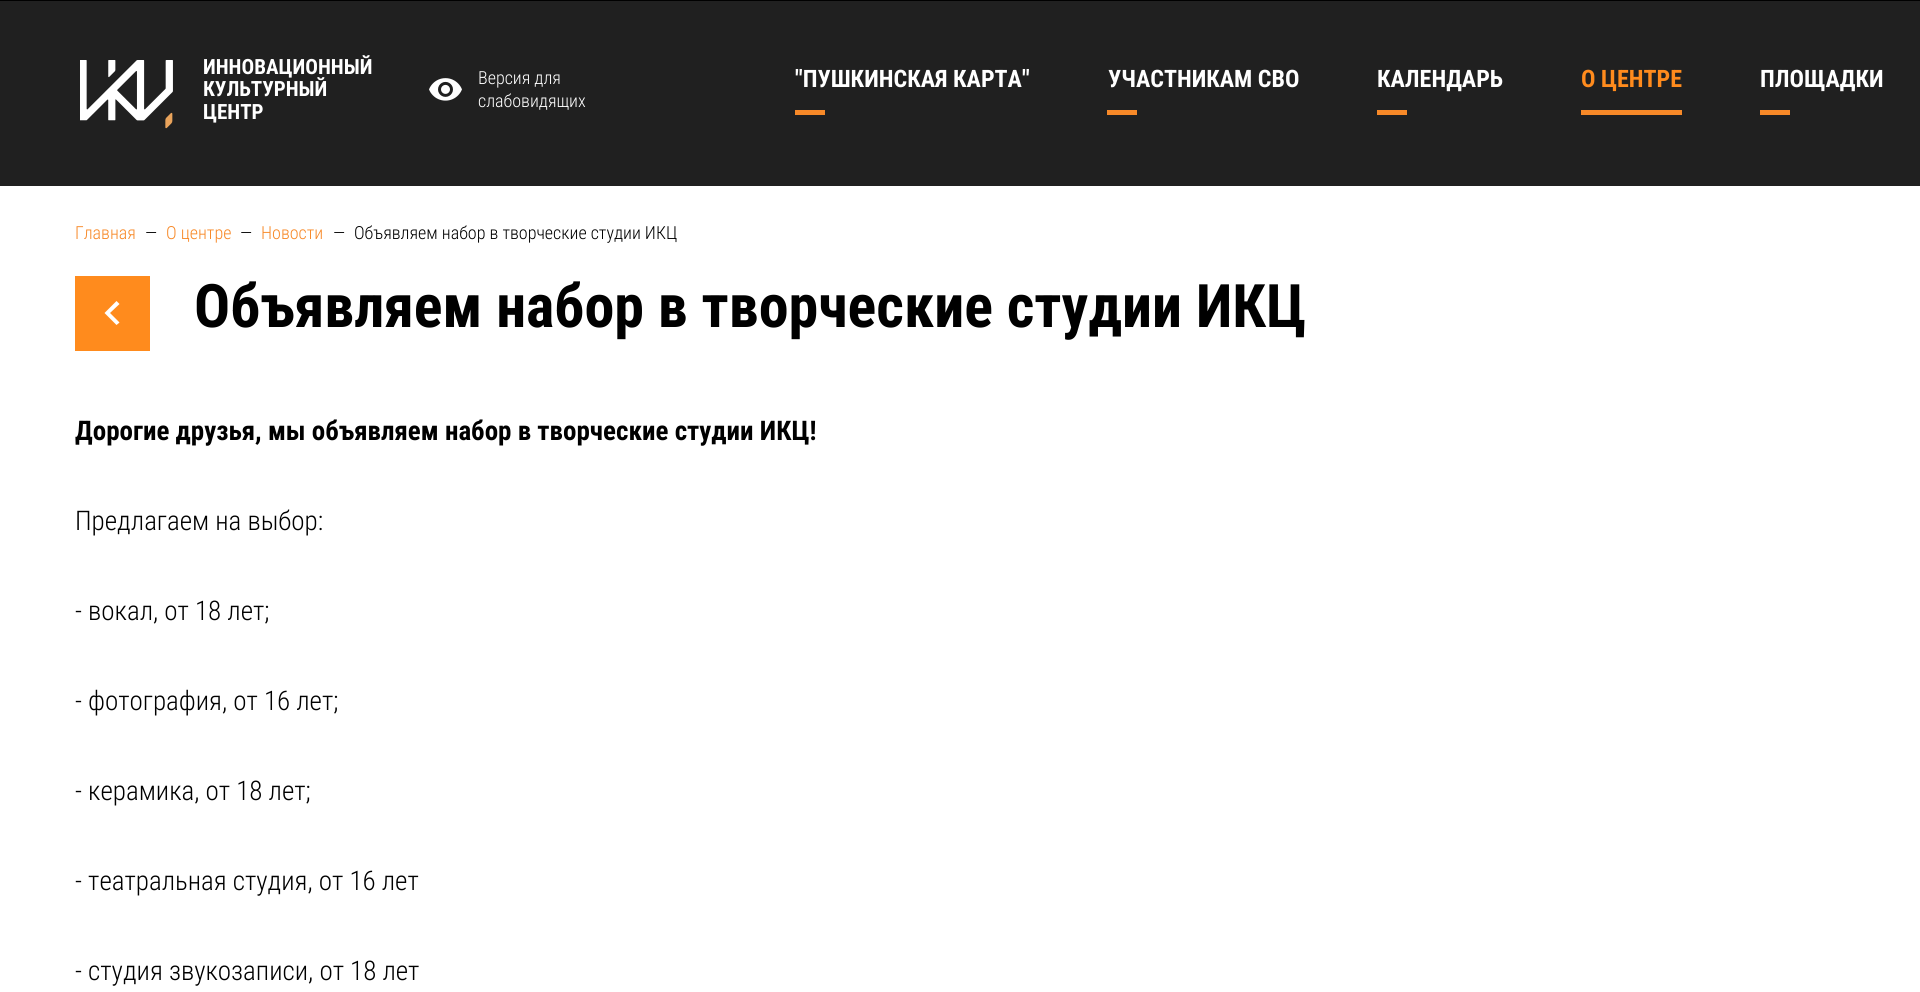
import math
import cairo


def paste(ctx, path, x, y, w, h):
	ctx.save()
	ctx.set_source_surface(cairo.ImageSurface.create_from_png(path), x, y)
	ctx.rectangle(x, y, w, h)
	ctx.fill()
	ctx.restore()

def draw(ctx):
	ctx.set_source_rgb(1, 1, 1)
	ctx.paint()
	ctx.set_source_rgb(0, 0, 0)
	ctx.rectangle(0, 0, 1920, 1)
	ctx.fill()
	ctx.set_source_rgb(0.125, 0.125, 0.125)
	ctx.rectangle(0, 1, 1920, 185)
	ctx.fill()
	paste(ctx, 'media/1.png', 80, 60, 93, 69)
	ctx.select_font_face('Roboto Condensed', cairo.FONT_SLANT_NORMAL, cairo.FONT_WEIGHT_BOLD)
	ctx.set_font_size(21)
	ctx.set_source_rgb(1, 1, 1)
	for x, y, s in [
		(203, 74, 'ИННОВАЦИОННЫЙ'),
		(203, 96, 'КУЛЬТУРНЫЙ'),
		(203, 119, 'ЦЕНТР'),
	]:
		ctx.move_to(x, y)
		ctx.show_text(s)
	paste(ctx, 'media/2.png', 429, 78, 33, 23)
	ctx.select_font_face('Roboto Condensed Light')
	ctx.set_font_size(18)
	ctx.move_to(478, 84)
	ctx.show_text('Версия для')
	ctx.move_to(478, 107)
	ctx.show_text('слабовидящих')
	ctx.select_font_face('Roboto Condensed', cairo.FONT_SLANT_NORMAL, cairo.FONT_WEIGHT_BOLD)
	ctx.set_font_size(24)
	ctx.move_to(795, 87)
	ctx.show_text('"ПУШКИНСКАЯ КАРТА"')
	ctx.set_source_rgb(0.965, 0.537, 0.157)
	ctx.rectangle(795, 110, 30, 5)
	ctx.fill()
	ctx.set_source_rgb(1, 1, 1)
	ctx.move_to(1108, 87)
	ctx.show_text('УЧАСТНИКАМ СВО')
	ctx.set_source_rgb(0.965, 0.537, 0.157)
	ctx.rectangle(1107, 110, 30, 5)
	ctx.fill()
	ctx.set_source_rgb(1, 1, 1)
	ctx.move_to(1377, 87)
	ctx.show_text('КАЛЕНДАРЬ')
	ctx.set_source_rgb(0.965, 0.537, 0.157)
	ctx.rectangle(1377, 110, 30, 5)
	ctx.fill()
	ctx.set_source_rgb(1, 0.545, 0.114)
	ctx.move_to(1581, 87)
	ctx.show_text('О ЦЕНТРЕ')
	ctx.set_source_rgb(0.965, 0.537, 0.157)
	ctx.rectangle(1581, 110, 101, 5)
	ctx.fill()
	ctx.set_source_rgb(1, 1, 1)
	ctx.move_to(1760, 87)
	ctx.show_text('ПЛОЩАДКИ')
	ctx.set_source_rgb(0.965, 0.537, 0.157)
	ctx.rectangle(1760, 110, 30, 5)
	ctx.fill()
	ctx.select_font_face('Roboto Condensed Light')
	ctx.set_font_size(18)
	ctx.move_to(75, 239)
	ctx.show_text('Главная')
	ctx.set_source_rgb(0, 0, 0)
	ctx.move_to(145, 239)
	ctx.show_text('—')
	ctx.set_source_rgb(0.965, 0.537, 0.157)
	ctx.move_to(166, 239)
	ctx.show_text('О центре')
	ctx.set_source_rgb(0, 0, 0)
	ctx.move_to(240, 239)
	ctx.show_text('—')
	ctx.set_source_rgb(0.965, 0.537, 0.157)
	ctx.move_to(261, 239)
	ctx.show_text('Новости')
	ctx.set_source_rgb(0, 0, 0)
	ctx.move_to(333, 239)
	ctx.show_text('—')
	ctx.move_to(354, 239)
	ctx.show_text('Объявляем набор в творческие студии ИКЦ')
	ctx.set_source_rgb(1, 0.545, 0.114)
	ctx.rectangle(75, 276, 75, 75)
	ctx.fill()
	ctx.set_source_rgb(1, 1, 1)
	ctx.new_path()
	ctx.move_to(119.5, 322.5)
	ctx.line_to(110, 313)
	ctx.line_to(119.5, 304)
	ctx.line_to(116.5, 301)
	ctx.line_to(104.5, 313)
	ctx.line_to(116.5, 325)
	ctx.close_path()
	ctx.fill()
	ctx.select_font_face('Roboto Condensed', cairo.FONT_SLANT_NORMAL, cairo.FONT_WEIGHT_BOLD)
	ctx.set_font_size(60)
	ctx.set_source_rgb(0, 0, 0)
	ctx.move_to(194, 327)
	ctx.show_text('Объявляем набор в творческие студии ИКЦ')
	ctx.set_font_size(27)
	ctx.move_to(75, 440)
	ctx.show_text('Дорогие друзья, мы объявляем набор в творческие студии ИКЦ!')
	ctx.select_font_face('Roboto Condensed Light')
	for x, y, s in [
		(75, 530, 'Предлагаем на выбор:'),
		(75, 620, '- вокал, от 18 лет;'),
		(75, 710, '- фотография, от 16 лет;'),
		(75, 800, '- керамика, от 18 лет;'),
		(75, 890, '- театральная студия, от 16 лет'),
		(75, 980, '- студия звукозаписи, от 18 лет'),
	]:
		ctx.move_to(x, y)
		ctx.show_text(s)


surface = cairo.ImageSurface(cairo.FORMAT_RGB24, 1920, 992)
ctx = cairo.Context(surface)
options = cairo.FontOptions()
options.set_hint_metrics(cairo.HINT_METRICS_OFF)
options.set_hint_style(cairo.HINT_STYLE_NONE)
ctx.set_font_options(options)
ctx.set_miter_limit(4)
draw(ctx)
surface.write_to_png('image.png')
